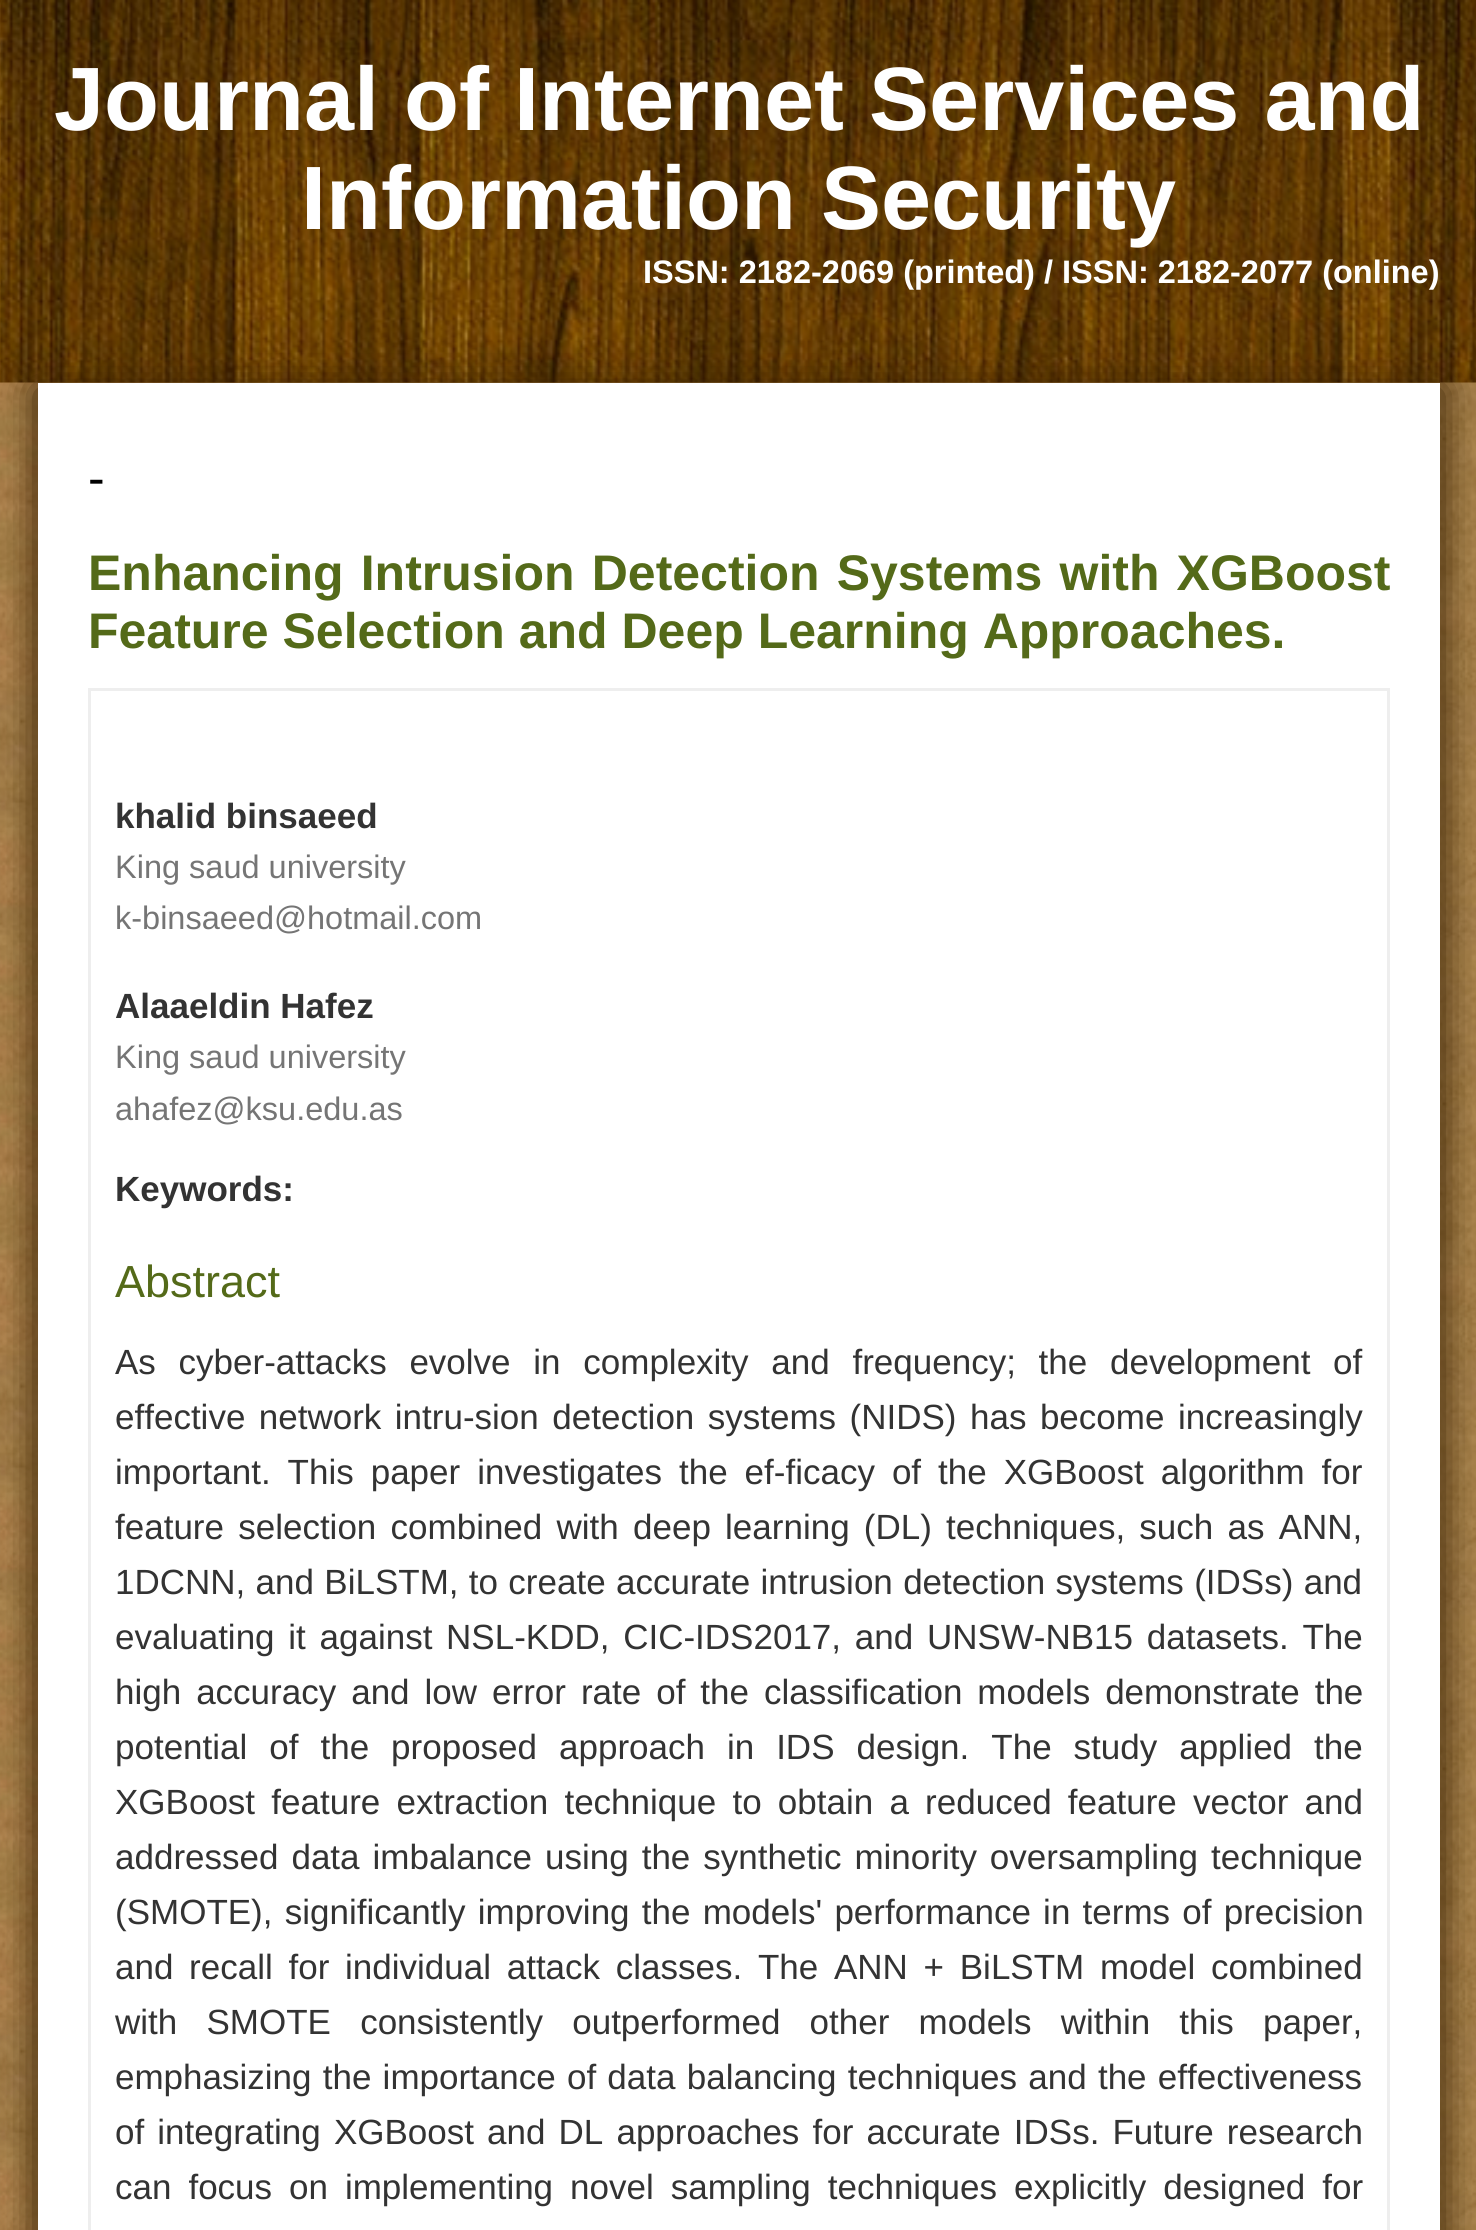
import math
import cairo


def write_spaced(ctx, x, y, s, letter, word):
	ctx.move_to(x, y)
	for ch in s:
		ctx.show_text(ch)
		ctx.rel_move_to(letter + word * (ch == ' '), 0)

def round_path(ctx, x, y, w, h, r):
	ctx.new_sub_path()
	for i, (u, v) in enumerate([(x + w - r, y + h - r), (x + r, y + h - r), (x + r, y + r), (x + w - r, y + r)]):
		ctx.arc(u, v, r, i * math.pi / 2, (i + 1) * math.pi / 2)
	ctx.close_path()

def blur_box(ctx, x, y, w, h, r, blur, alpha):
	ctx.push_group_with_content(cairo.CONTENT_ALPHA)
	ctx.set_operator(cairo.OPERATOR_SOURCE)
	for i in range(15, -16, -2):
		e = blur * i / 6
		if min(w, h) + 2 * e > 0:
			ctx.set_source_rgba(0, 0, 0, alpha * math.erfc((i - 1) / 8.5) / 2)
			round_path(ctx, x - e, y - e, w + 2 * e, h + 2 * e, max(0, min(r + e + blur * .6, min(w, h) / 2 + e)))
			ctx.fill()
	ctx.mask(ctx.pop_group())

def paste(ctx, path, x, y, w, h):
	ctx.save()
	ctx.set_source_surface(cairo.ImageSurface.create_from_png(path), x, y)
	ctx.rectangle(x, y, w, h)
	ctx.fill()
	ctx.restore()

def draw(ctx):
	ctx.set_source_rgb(1, 1, 1)
	ctx.paint()
	paste(ctx, 'media/1.png', 0, 382, 1476, 1848)
	paste(ctx, 'media/2.png', 0, 0, 1476, 383)
	ctx.select_font_face('Liberation Sans', cairo.FONT_SLANT_NORMAL, cairo.FONT_WEIGHT_BOLD)
	ctx.set_font_size(90)
	ctx.set_source_rgb(1, 1, 1)
	ctx.move_to(54, 130)
	ctx.show_text('Journal of Internet Services and')
	ctx.move_to(301, 229)
	ctx.show_text('Information Security')
	ctx.set_font_size(32.5)
	ctx.move_to(643, 283)
	ctx.show_text('ISSN: 2182-2069 (printed) / ISSN: 2182-2077 (online)')
	ctx.set_source_rgb(0.212, 0.118, 0)
	blur_box(ctx, 35, 388, 1408, 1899, 0, 19, 1)
	ctx.set_source_rgb(1, 1, 1)
	ctx.rectangle(38, 383, 1402, 1847)
	ctx.fill()
	ctx.select_font_face('Liberation Sans')
	ctx.set_font_size(50)
	ctx.set_source_rgb(0, 0, 0)
	ctx.move_to(88, 495)
	ctx.show_text('-')
	ctx.select_font_face('Liberation Sans', cairo.FONT_SLANT_NORMAL, cairo.FONT_WEIGHT_BOLD)
	ctx.set_source_rgb(0.329, 0.416, 0.098)
	write_spaced(ctx, 88, 590, 'Enhancing Intrusion Detection Systems with XGBoost', 0, 3.25)
	ctx.move_to(88, 648)
	ctx.show_text('Feature Selection and Deep Learning Approaches.')
	ctx.rectangle(89.5, 689.5, 1299, 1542)
	ctx.set_source_rgb(0.933, 0.933, 0.933)
	ctx.set_line_width(3)
	ctx.stroke()
	ctx.set_font_size(35)
	ctx.set_source_rgb(0.2, 0.2, 0.2)
	ctx.move_to(115, 828)
	ctx.show_text('khalid binsaeed')
	ctx.select_font_face('Liberation Sans')
	ctx.set_font_size(32.5)
	ctx.set_source_rgb(0.459, 0.459, 0.459)
	ctx.move_to(115, 878)
	ctx.show_text('King saud university')
	ctx.move_to(115, 929)
	ctx.show_text('k-binsaeed@hotmail.com')
	ctx.select_font_face('Liberation Sans', cairo.FONT_SLANT_NORMAL, cairo.FONT_WEIGHT_BOLD)
	ctx.set_font_size(35)
	ctx.set_source_rgb(0.2, 0.2, 0.2)
	ctx.move_to(115, 1018)
	ctx.show_text('Alaaeldin Hafez')
	ctx.select_font_face('Liberation Sans')
	ctx.set_font_size(32.5)
	ctx.set_source_rgb(0.459, 0.459, 0.459)
	ctx.move_to(115, 1068)
	ctx.show_text('King saud university')
	ctx.move_to(115, 1120)
	ctx.show_text('ahafez@ksu.edu.as')
	ctx.select_font_face('Liberation Sans', cairo.FONT_SLANT_NORMAL, cairo.FONT_WEIGHT_BOLD)
	ctx.set_font_size(35)
	ctx.set_source_rgb(0.2, 0.2, 0.2)
	ctx.move_to(115, 1201)
	ctx.show_text('Keywords:')
	ctx.select_font_face('Liberation Sans')
	ctx.set_font_size(45)
	ctx.set_source_rgb(0.329, 0.416, 0.098)
	ctx.move_to(115, 1297)
	ctx.show_text('Abstract')
	ctx.set_font_size(35)
	ctx.set_source_rgb(0.2, 0.2, 0.2)
	write_spaced(ctx, 115, 1374, 'As cyber-attacks evolve in complexity and frequency; the development of', 0, 13)
	write_spaced(ctx, 115, 1429, 'effective network intru-sion detection systems (NIDS) has become increasingly', 0, 3.75)
	write_spaced(ctx, 115, 1484, 'important. This paper investigates the ef-ficacy of the XGBoost algorithm for', 0, 7.25)
	write_spaced(ctx, 115, 1539, 'feature selection combined with deep learning (DL) techniques, such as ANN,', 0, 4.5)
	write_spaced(ctx, 115, 1594, '1DCNN, and BiLSTM, to create accurate intrusion detection systems (IDSs) and', 0, 0.6)
	write_spaced(ctx, 115, 1649, 'evaluating it against NSL-KDD, CIC-IDS2017, and UNSW-NB15 datasets. The', 0, 4)
	write_spaced(ctx, 115, 1704, 'high accuracy and low error rate of the classification models demonstrate the', 0, 5.25)
	write_spaced(ctx, 115, 1759, 'potential of the proposed approach in IDS design. The study applied the', 0, 12.25)
	write_spaced(ctx, 115, 1814, 'XGBoost feature extraction technique to obtain a reduced feature vector and', 0, 6.5)
	write_spaced(ctx, 115, 1869, 'addressed data imbalance using the synthetic minority oversampling technique', 0, 3.25)
	write_spaced(ctx, 115, 1924, '(SMOTE), significantly improving the models\' performance in terms of precision', 0, 2.5)
	write_spaced(ctx, 115, 1979, 'and recall for individual attack classes. The ANN + BiLSTM model combined', 0, 6)
	write_spaced(ctx, 115, 2034, 'with SMOTE consistently outperformed other models within this paper,', 0, 19.5)
	write_spaced(ctx, 115, 2089, 'emphasizing the importance of data balancing techniques and the effectiveness', 0, 1.5)
	write_spaced(ctx, 115, 2144, 'of integrating XGBoost and DL approaches for accurate IDSs. Future research', 0, 3.4)
	write_spaced(ctx, 115, 2199, 'can focus on implementing novel sampling techniques explicitly designed for', 0, 7.25)


surface = cairo.ImageSurface(cairo.FORMAT_RGB24, 1476, 2230)
ctx = cairo.Context(surface)
options = cairo.FontOptions()
options.set_hint_metrics(cairo.HINT_METRICS_OFF)
options.set_hint_style(cairo.HINT_STYLE_NONE)
ctx.set_font_options(options)
ctx.set_miter_limit(4)
draw(ctx)
surface.write_to_png('image.png')
